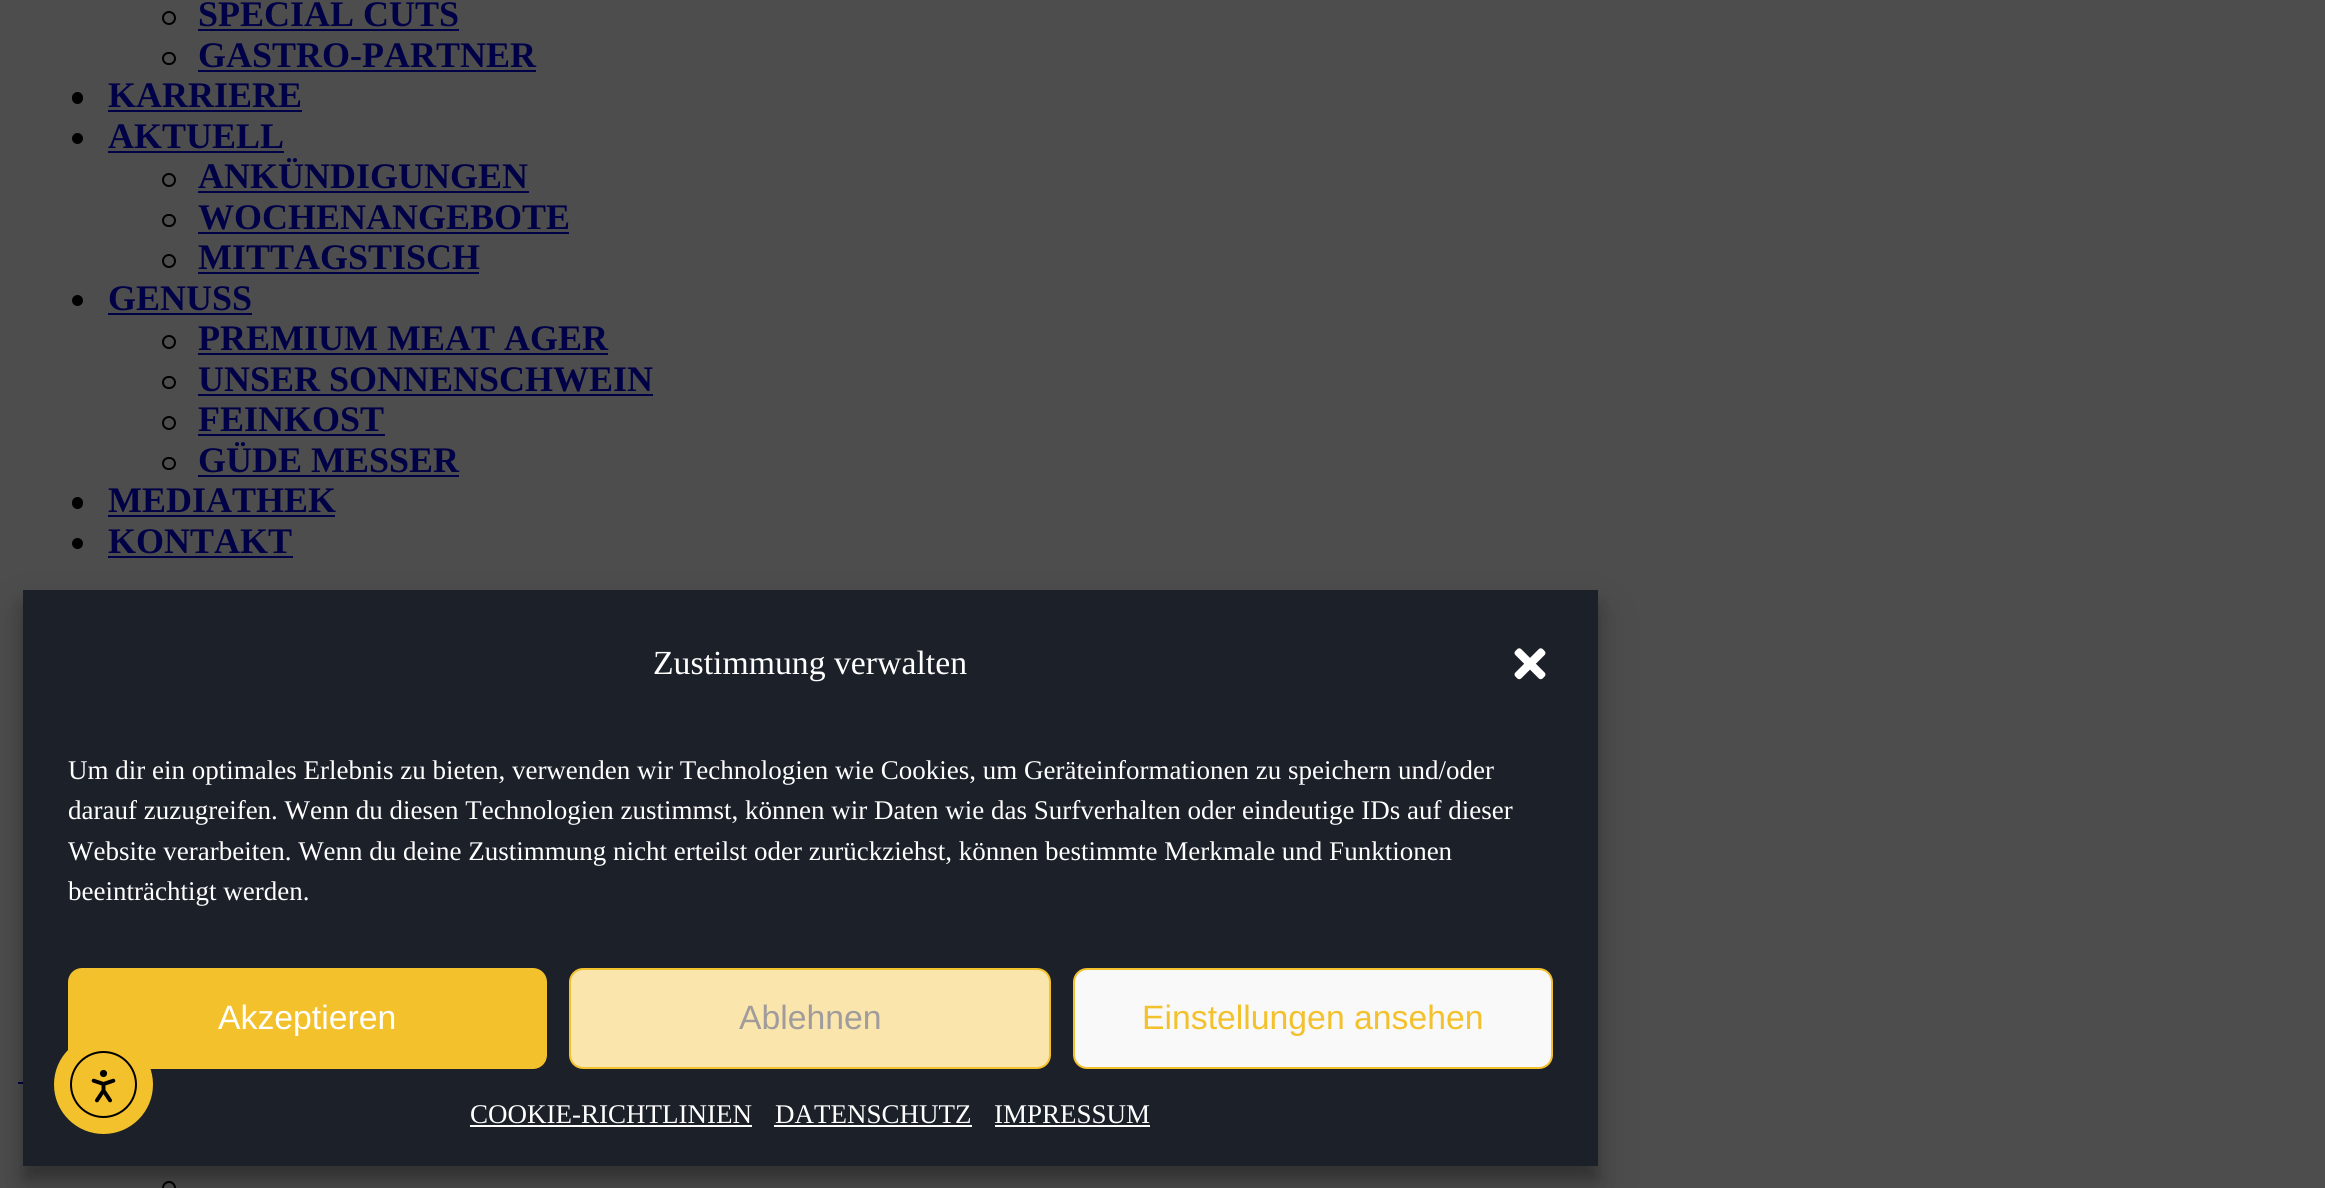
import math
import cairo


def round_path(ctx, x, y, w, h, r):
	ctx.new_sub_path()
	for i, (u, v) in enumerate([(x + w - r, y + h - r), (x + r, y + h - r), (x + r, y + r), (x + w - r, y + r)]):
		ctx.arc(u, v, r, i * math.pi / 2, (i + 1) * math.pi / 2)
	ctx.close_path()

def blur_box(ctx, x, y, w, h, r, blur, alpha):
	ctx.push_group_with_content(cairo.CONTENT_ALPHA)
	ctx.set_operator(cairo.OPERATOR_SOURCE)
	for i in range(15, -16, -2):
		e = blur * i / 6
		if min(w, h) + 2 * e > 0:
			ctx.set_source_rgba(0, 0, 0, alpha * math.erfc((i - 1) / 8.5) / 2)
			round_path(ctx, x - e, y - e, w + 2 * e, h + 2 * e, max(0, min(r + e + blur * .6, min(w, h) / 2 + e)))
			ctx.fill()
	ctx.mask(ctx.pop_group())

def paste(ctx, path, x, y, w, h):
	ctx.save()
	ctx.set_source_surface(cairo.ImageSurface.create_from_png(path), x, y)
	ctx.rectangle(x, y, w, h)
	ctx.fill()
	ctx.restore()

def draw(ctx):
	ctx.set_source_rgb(0.302, 0.302, 0.302)
	ctx.paint()
	ctx.arc(169, 18, 6, 0, 2 * math.pi)
	ctx.set_source_rgb(0, 0, 0)
	ctx.stroke()
	ctx.select_font_face('Liberation Serif', cairo.FONT_SLANT_NORMAL, cairo.FONT_WEIGHT_BOLD)
	ctx.set_font_size(36)
	ctx.set_source_rgb(0, 0, 0.278)
	ctx.move_to(198, 26)
	ctx.show_text('SPECIAL CUTS')
	ctx.rectangle(198, 29, 261, 2)
	ctx.fill()
	round_path(ctx, 163, 53, 12, 11, 5.5)
	ctx.set_source_rgb(0, 0, 0)
	ctx.stroke()
	ctx.set_source_rgb(0, 0, 0.278)
	ctx.move_to(198, 67)
	ctx.show_text('GASTRO-PARTNER')
	ctx.rectangle(198, 70, 338, 2)
	ctx.fill()
	ctx.set_source_rgb(0, 0, 0)
	round_path(ctx, 72, 92, 11, 12, 5.5)
	ctx.fill()
	ctx.set_source_rgb(0, 0, 0.278)
	ctx.move_to(108, 107)
	ctx.show_text('KARRIERE')
	ctx.rectangle(108, 110, 194, 2)
	ctx.fill()
	ctx.set_source_rgb(0, 0, 0)
	ctx.arc(77.5, 138.5, 5.5, 0, 2 * math.pi)
	ctx.fill()
	ctx.set_source_rgb(0, 0, 0.278)
	ctx.move_to(108, 148)
	ctx.show_text('AKTUELL')
	ctx.rectangle(108, 151, 176, 2)
	ctx.fill()
	ctx.arc(169, 180, 6, 0, 2 * math.pi)
	ctx.set_source_rgb(0, 0, 0)
	ctx.stroke()
	ctx.set_source_rgb(0, 0, 0.278)
	ctx.move_to(198, 188)
	ctx.show_text('ANKÜNDIGUNGEN')
	ctx.rectangle(198, 191, 331, 2)
	ctx.fill()
	round_path(ctx, 163, 215, 12, 11, 5.5)
	ctx.set_source_rgb(0, 0, 0)
	ctx.stroke()
	ctx.set_source_rgb(0, 0, 0.278)
	ctx.move_to(198, 229)
	ctx.show_text('WOCHENANGEBOTE')
	ctx.rectangle(198, 232, 371, 2)
	ctx.fill()
	ctx.arc(169, 261, 6, 0, 2 * math.pi)
	ctx.set_source_rgb(0, 0, 0)
	ctx.stroke()
	ctx.set_source_rgb(0, 0, 0.278)
	ctx.move_to(198, 269)
	ctx.show_text('MITTAGSTISCH')
	ctx.rectangle(198, 272, 281, 2)
	ctx.fill()
	ctx.set_source_rgb(0, 0, 0)
	ctx.arc(77.5, 300.5, 5.5, 0, 2 * math.pi)
	ctx.fill()
	ctx.set_source_rgb(0, 0, 0.278)
	ctx.move_to(108, 310)
	ctx.show_text('GENUSS')
	ctx.rectangle(108, 313, 144, 2)
	ctx.fill()
	ctx.arc(169, 342, 6, 0, 2 * math.pi)
	ctx.set_source_rgb(0, 0, 0)
	ctx.stroke()
	ctx.set_source_rgb(0, 0, 0.278)
	ctx.move_to(198, 350)
	ctx.show_text('PREMIUM MEAT AGER')
	ctx.rectangle(198, 353, 410, 2)
	ctx.fill()
	round_path(ctx, 163, 377, 12, 11, 5.5)
	ctx.set_source_rgb(0, 0, 0)
	ctx.stroke()
	ctx.set_source_rgb(0, 0, 0.278)
	ctx.move_to(198, 391)
	ctx.show_text('UNSER SONNENSCHWEIN')
	ctx.rectangle(198, 394, 455, 2)
	ctx.fill()
	ctx.arc(169, 423, 6, 0, 2 * math.pi)
	ctx.set_source_rgb(0, 0, 0)
	ctx.stroke()
	ctx.set_source_rgb(0, 0, 0.278)
	ctx.move_to(198, 431)
	ctx.show_text('FEINKOST')
	ctx.rectangle(198, 434, 187, 2)
	ctx.fill()
	round_path(ctx, 163, 458, 12, 11, 5.5)
	ctx.set_source_rgb(0, 0, 0)
	ctx.stroke()
	ctx.set_source_rgb(0, 0, 0.278)
	ctx.move_to(198, 472)
	ctx.show_text('GÜDE MESSER')
	ctx.rectangle(198, 475, 261, 2)
	ctx.fill()
	ctx.set_source_rgb(0, 0, 0)
	round_path(ctx, 72, 497, 11, 12, 5.5)
	ctx.fill()
	ctx.set_source_rgb(0, 0, 0.278)
	ctx.move_to(108, 512)
	ctx.show_text('MEDIATHEK')
	ctx.rectangle(108, 515, 227, 2)
	ctx.fill()
	ctx.set_source_rgb(0, 0, 0)
	ctx.arc(77.5, 543.5, 5.5, 0, 2 * math.pi)
	ctx.fill()
	ctx.set_source_rgb(0, 0, 0.278)
	ctx.move_to(108, 553)
	ctx.show_text('KONTAKT')
	ctx.rectangle(108, 556, 185, 2)
	ctx.fill()
	ctx.rectangle(18, 1082, 5, 2)
	ctx.fill()
	ctx.arc(169, 1188, 6, 0, 2 * math.pi)
	ctx.set_source_rgb(0, 0, 0)
	ctx.stroke()
	ctx.set_source_rgb(0, 0, 0)
	blur_box(ctx, 23, 603, 1575, 576, 0, 7, 0.23)
	blur_box(ctx, 23, 612, 1575, 576, 0, 22.5, 0.19)
	ctx.set_source_rgb(0.106, 0.125, 0.161)
	ctx.rectangle(23, 590, 1575, 576)
	ctx.fill()
	ctx.select_font_face('Liberation Serif')
	ctx.set_font_size(33.75)
	ctx.set_source_rgb(1, 1, 1)
	ctx.move_to(653, 674)
	ctx.show_text('Zustimmung verwalten')
	paste(ctx, 'media/1.png', 1514, 648, 32, 32)
	ctx.set_font_size(27)
	for x, y, s in [
		(68, 779, 'Um dir ein optimales Erlebnis zu bieten, verwenden wir Technologien wie Cookies, um Geräteinformationen zu speichern und/oder'),
		(68, 819, 'darauf zuzugreifen. Wenn du diesen Technologien zustimmst, können wir Daten wie das Surfverhalten oder eindeutige IDs auf dieser'),
		(68, 860, 'Website verarbeiten. Wenn du deine Zustimmung nicht erteilst oder zurückziehst, können bestimmte Merkmale und Funktionen'),
		(68, 900, 'beeinträchtigt werden.'),
	]:
		ctx.move_to(x, y)
		ctx.show_text(s)
	ctx.set_source_rgb(0.953, 0.757, 0.173)
	round_path(ctx, 69, 969, 477, 99, 13)
	ctx.fill_preserve()
	ctx.stroke()
	ctx.select_font_face('Liberation Sans')
	ctx.set_font_size(33.75)
	ctx.set_source_rgb(1, 1, 1)
	ctx.move_to(218, 1029)
	ctx.show_text('Akzeptieren')
	ctx.set_source_rgb(0.98, 0.898, 0.678)
	round_path(ctx, 570, 969, 480, 99, 13)
	ctx.fill_preserve()
	ctx.set_source_rgb(0.953, 0.757, 0.173)
	ctx.stroke()
	ctx.set_source_rgb(0.627, 0.612, 0.608)
	ctx.move_to(739, 1029)
	ctx.show_text('Ablehnen')
	ctx.set_source_rgb(0.976, 0.976, 0.976)
	round_path(ctx, 1074, 969, 478, 99, 13)
	ctx.fill_preserve()
	ctx.set_source_rgb(0.953, 0.757, 0.173)
	ctx.stroke()
	ctx.move_to(1142, 1029)
	ctx.show_text('Einstellungen ansehen')
	ctx.select_font_face('Liberation Serif')
	ctx.set_font_size(27)
	ctx.set_source_rgb(1, 1, 1)
	ctx.move_to(470, 1123)
	ctx.show_text('COOKIE-RICHTLINIEN')
	ctx.rectangle(470, 1125, 282, 2)
	ctx.fill()
	ctx.move_to(775, 1123)
	ctx.show_text('DATENSCHUTZ')
	ctx.rectangle(774, 1125, 198, 2)
	ctx.fill()
	ctx.move_to(994, 1123)
	ctx.show_text('IMPRESSUM')
	ctx.rectangle(995, 1125, 155, 2)
	ctx.fill()
	ctx.set_source_rgb(0.953, 0.757, 0.173)
	ctx.arc(103.5, 1084.5, 49.5, 0, 2 * math.pi)
	ctx.fill()
	ctx.arc(103.5, 1084.5, 32.5, 0, 2 * math.pi)
	ctx.set_source_rgb(0, 0, 0)
	ctx.stroke()
	paste(ctx, 'media/2.png', 91, 1069, 25, 34)


surface = cairo.ImageSurface(cairo.FORMAT_RGB24, 2325, 1188)
ctx = cairo.Context(surface)
options = cairo.FontOptions()
options.set_hint_metrics(cairo.HINT_METRICS_OFF)
options.set_hint_style(cairo.HINT_STYLE_NONE)
ctx.set_font_options(options)
ctx.set_miter_limit(4)
draw(ctx)
surface.write_to_png('image.png')
